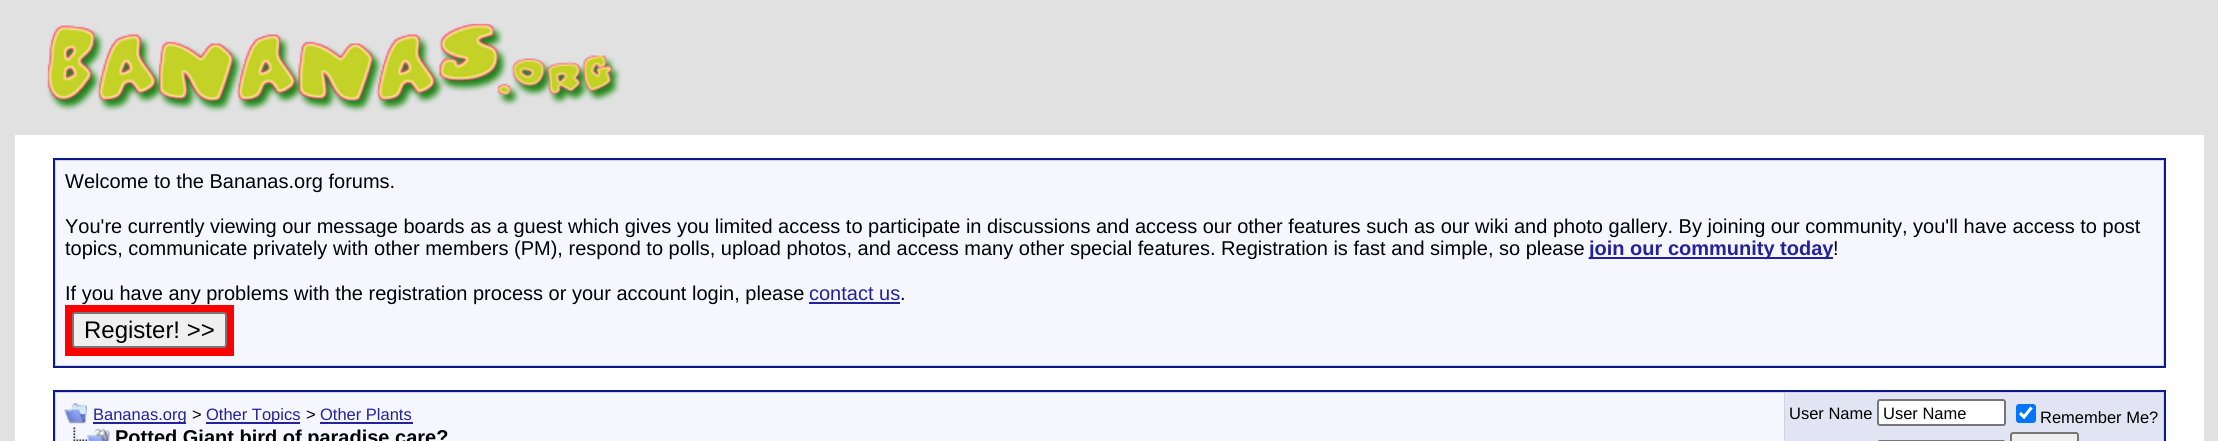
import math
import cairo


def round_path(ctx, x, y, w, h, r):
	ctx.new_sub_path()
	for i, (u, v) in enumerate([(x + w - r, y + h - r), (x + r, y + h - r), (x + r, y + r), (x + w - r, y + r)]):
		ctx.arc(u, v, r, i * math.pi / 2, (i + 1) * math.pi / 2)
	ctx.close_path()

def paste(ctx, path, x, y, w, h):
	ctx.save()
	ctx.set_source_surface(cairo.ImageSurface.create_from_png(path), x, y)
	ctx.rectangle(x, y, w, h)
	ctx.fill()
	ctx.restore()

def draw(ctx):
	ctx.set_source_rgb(0.882, 0.882, 0.886)
	ctx.paint()
	paste(ctx, 'media/1.png', 46, 23, 576, 90)
	ctx.set_source_rgb(1, 1, 1)
	ctx.rectangle(15, 135, 2189, 306)
	ctx.fill()
	ctx.set_source_rgb(0.82, 0.82, 0.882)
	ctx.rectangle(54, 159, 2111, 208)
	ctx.fill_preserve()
	ctx.set_source_rgb(0.043, 0.098, 0.549)
	ctx.stroke()
	ctx.set_source_rgb(0.961, 0.961, 1)
	ctx.rectangle(56, 161, 2107, 204)
	ctx.fill()
	ctx.select_font_face('Liberation Sans')
	ctx.set_font_size(20)
	ctx.set_source_rgb(0, 0, 0)
	for x, y, s in [
		(65, 188, 'Welcome to the Bananas.org forums.'),
		(65, 233, 'You\'re currently viewing our message boards as a guest which gives you limited access to participate in discussions and access our other features such as our wiki and photo gallery. By joining our community, you\'ll have access to post'),
		(65, 255, 'topics, communicate privately with other members (PM), respond to polls, upload photos, and access many other special features. Registration is fast and simple, so please'),
	]:
		ctx.move_to(x, y)
		ctx.show_text(s)
	ctx.set_source_rgb(0.133, 0.133, 0.612)
	ctx.rectangle(1589, 257, 244, 2)
	ctx.fill()
	ctx.select_font_face('Liberation Sans', cairo.FONT_SLANT_NORMAL, cairo.FONT_WEIGHT_BOLD)
	ctx.move_to(1589, 255)
	ctx.show_text('join our community today')
	ctx.select_font_face('Liberation Sans')
	ctx.set_source_rgb(0, 0, 0)
	ctx.move_to(1833, 255)
	ctx.show_text('!')
	ctx.move_to(65, 300)
	ctx.show_text('If you have any problems with the registration process or your account login, please')
	ctx.set_source_rgb(0.133, 0.133, 0.612)
	ctx.move_to(809, 300)
	ctx.show_text('contact us')
	ctx.rectangle(809, 302, 91, 2)
	ctx.fill()
	ctx.set_source_rgb(0, 0, 0)
	ctx.move_to(900, 300)
	ctx.show_text('.')
	ctx.set_source_rgb(1, 0, 0)
	ctx.rectangle(65, 305, 169, 51)
	ctx.fill()
	ctx.set_source_rgb(0.937, 0.937, 0.937)
	round_path(ctx, 73, 313, 153, 34, 2)
	ctx.fill_preserve()
	ctx.set_source_rgb(0.463, 0.463, 0.463)
	ctx.stroke()
	ctx.set_font_size(24)
	ctx.set_source_rgb(0, 0, 0)
	ctx.move_to(84, 338)
	ctx.show_text('Register! >>')
	ctx.set_source_rgb(0.82, 0.82, 0.882)
	ctx.rectangle(54, 391, 2111, 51)
	ctx.fill_preserve()
	ctx.set_source_rgb(0.043, 0.098, 0.549)
	ctx.stroke()
	ctx.set_source_rgb(0.961, 0.961, 1)
	ctx.rectangle(56, 393, 1728, 48)
	ctx.fill()
	paste(ctx, 'media/2.png', 64, 403, 23, 21)
	ctx.set_source_rgb(0.133, 0.133, 0.612)
	ctx.rectangle(93, 422, 93, 2)
	ctx.fill()
	ctx.set_font_size(16.5)
	ctx.move_to(93, 420)
	ctx.show_text('Bananas.org')
	ctx.set_source_rgb(0, 0, 0)
	ctx.move_to(192, 420)
	ctx.show_text('>')
	ctx.set_source_rgb(0.133, 0.133, 0.612)
	ctx.rectangle(206, 422, 94, 2)
	ctx.fill()
	ctx.move_to(206, 420)
	ctx.show_text('Other Topics')
	ctx.set_source_rgb(0, 0, 0)
	ctx.move_to(306, 420)
	ctx.show_text('>')
	ctx.set_source_rgb(0.133, 0.133, 0.612)
	ctx.move_to(320, 420)
	ctx.show_text('Other Plants')
	ctx.rectangle(320, 422, 93, 2)
	ctx.fill()
	paste(ctx, 'media/3.png', 73, 427, 37, 14)
	ctx.select_font_face('Liberation Sans', cairo.FONT_SLANT_NORMAL, cairo.FONT_WEIGHT_BOLD)
	ctx.set_font_size(20)
	ctx.set_source_rgb(0, 0, 0)
	ctx.move_to(115, 444)
	ctx.show_text('Potted Giant bird of paradise care?')
	ctx.set_source_rgb(0.882, 0.894, 0.949)
	ctx.rectangle(1785, 393, 378, 48)
	ctx.fill()
	ctx.select_font_face('Liberation Sans')
	ctx.set_font_size(16.5)
	ctx.set_source_rgb(0, 0, 0)
	ctx.move_to(1789, 419)
	ctx.show_text('User Name')
	ctx.set_source_rgb(1, 1, 1)
	round_path(ctx, 1878, 400, 127, 25, 2)
	ctx.fill_preserve()
	ctx.set_source_rgb(0.463, 0.463, 0.463)
	ctx.stroke()
	ctx.set_source_rgb(0, 0, 0)
	ctx.move_to(1883, 419)
	ctx.show_text('User Name')
	ctx.set_source_rgb(0, 0.459, 1)
	round_path(ctx, 2016, 404, 20, 19, 3)
	ctx.fill()
	ctx.new_path()
	ctx.move_to(2020, 413)
	ctx.line_to(2024, 417)
	ctx.line_to(2031.5, 407.5)
	ctx.set_source_rgb(1, 1, 1)
	ctx.set_line_width(3.1)
	ctx.stroke()
	ctx.set_source_rgb(0, 0, 0)
	ctx.move_to(2040, 423)
	ctx.show_text('Remember Me?')
	round_path(ctx, 1878, 441, 127, 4, 2)
	ctx.set_source_rgb(0.463, 0.463, 0.463)
	ctx.set_line_width(2)
	ctx.stroke()
	ctx.set_source_rgb(0.937, 0.937, 0.937)
	round_path(ctx, 2011, 433, 67, 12, 2)
	ctx.fill_preserve()
	ctx.set_source_rgb(0.463, 0.463, 0.463)
	ctx.stroke()


surface = cairo.ImageSurface(cairo.FORMAT_RGB24, 2218, 441)
ctx = cairo.Context(surface)
options = cairo.FontOptions()
options.set_hint_metrics(cairo.HINT_METRICS_OFF)
options.set_hint_style(cairo.HINT_STYLE_NONE)
ctx.set_font_options(options)
ctx.set_miter_limit(4)
draw(ctx)
surface.write_to_png('image.png')
